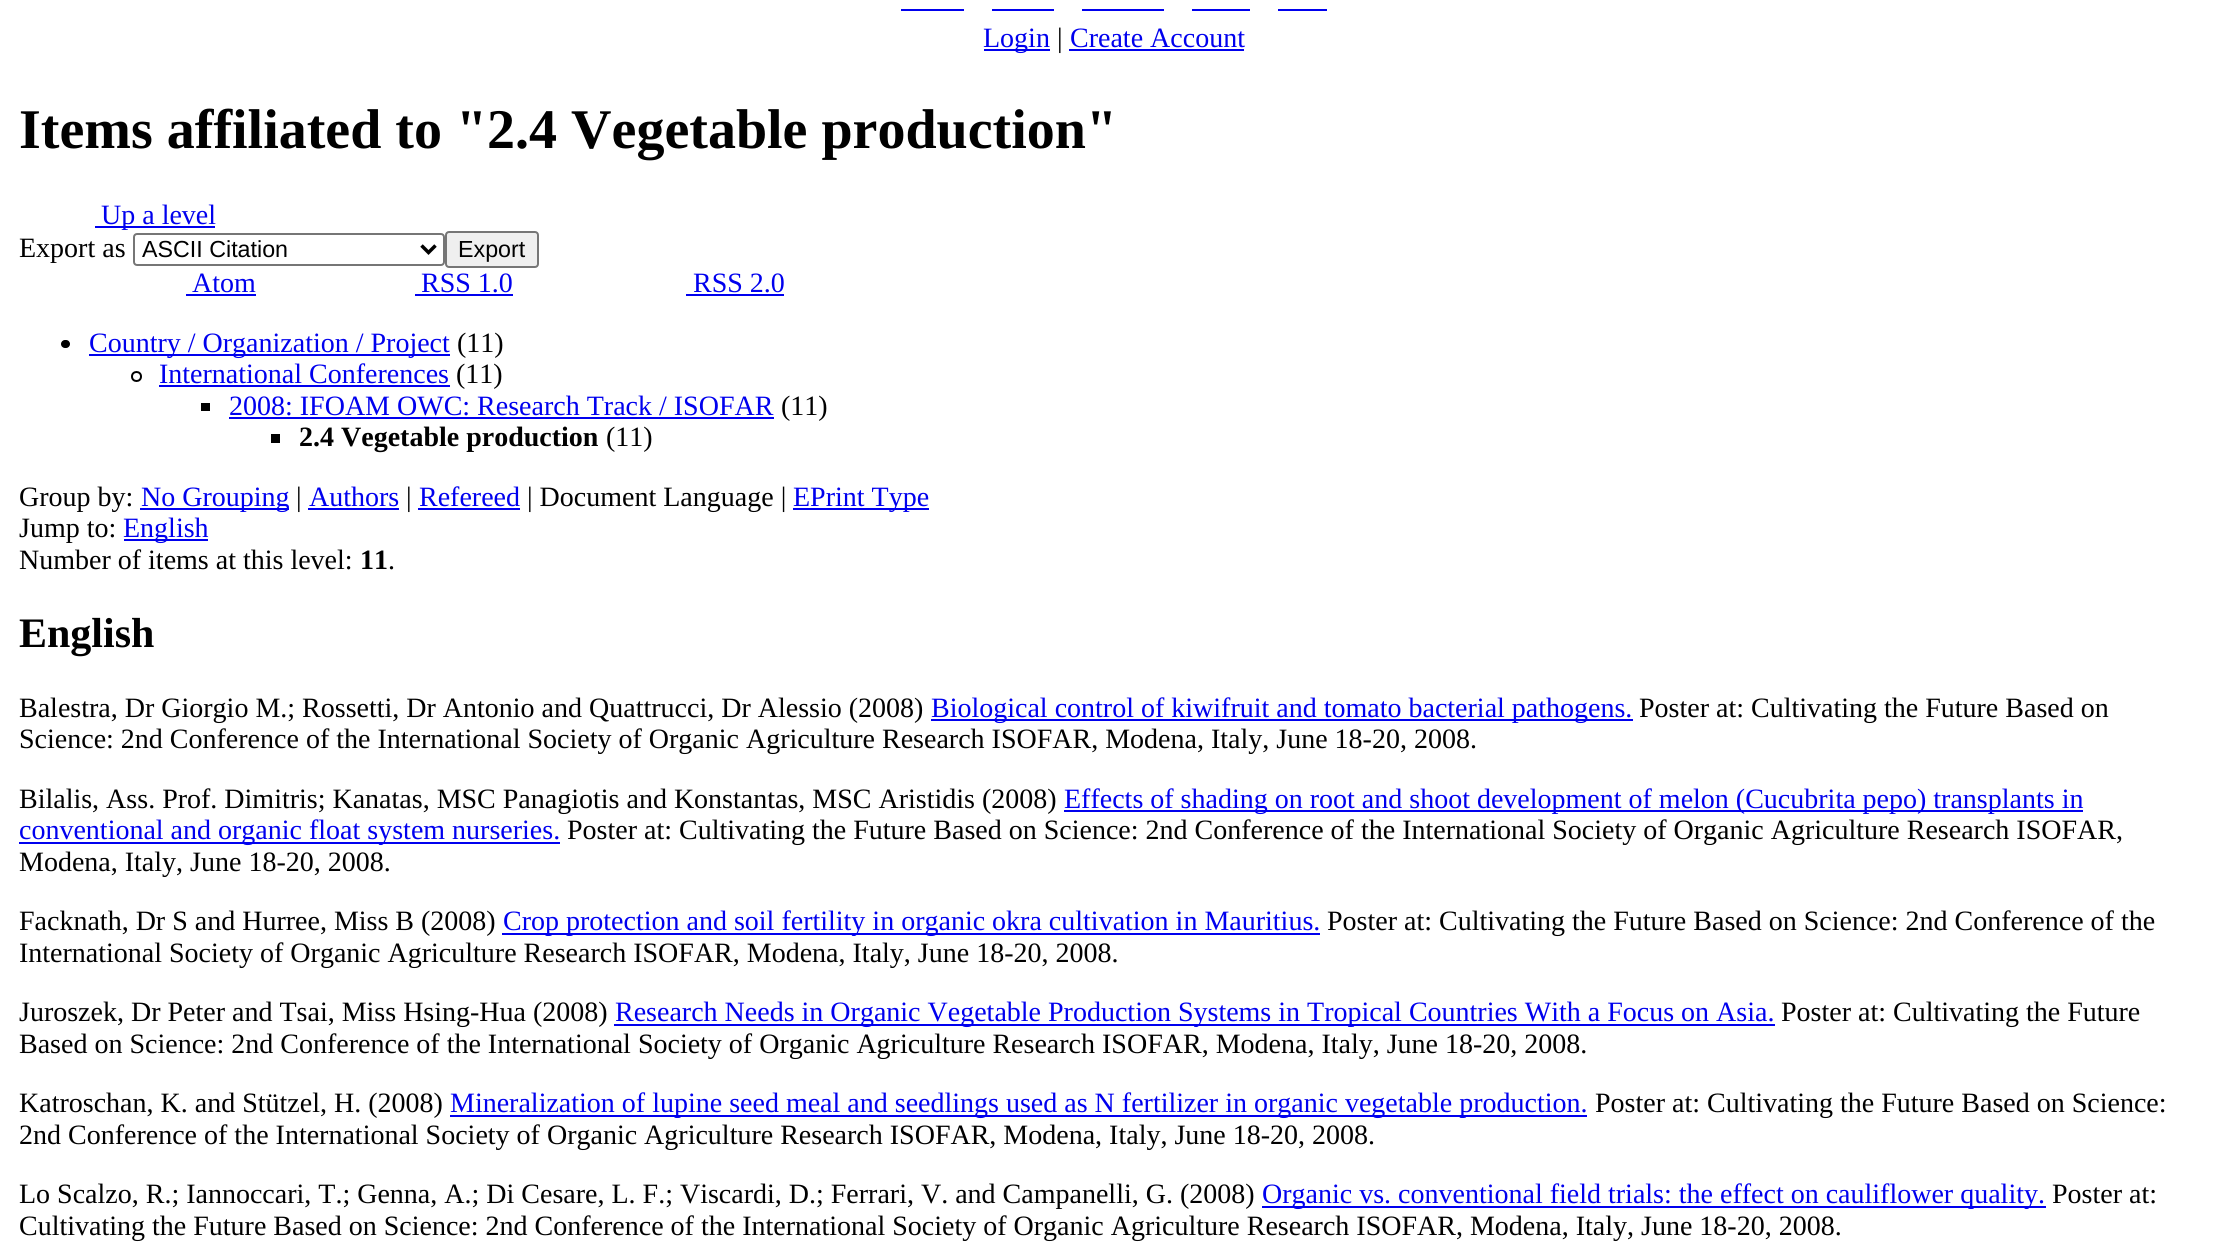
import math
import cairo


def round_path(ctx, x, y, w, h, r):
	ctx.new_sub_path()
	for i, (u, v) in enumerate([(x + w - r, y + h - r), (x + r, y + h - r), (x + r, y + r), (x + w - r, y + r)]):
		ctx.arc(u, v, r, i * math.pi / 2, (i + 1) * math.pi / 2)
	ctx.close_path()

def draw(ctx):
	ctx.set_source_rgb(1, 1, 1)
	ctx.paint()
	ctx.set_source_rgb(0, 0, 0.933)
	ctx.rectangle(901, 9, 63, 2)
	ctx.rectangle(992, 9, 62, 2)
	ctx.rectangle(1082, 9, 82, 2)
	ctx.rectangle(1192, 9, 58, 2)
	ctx.rectangle(1278, 9, 49, 2)
	ctx.rectangle(984, 49, 66, 2)
	ctx.fill()
	ctx.select_font_face('Liberation Serif')
	ctx.set_font_size(28)
	ctx.move_to(983, 47)
	ctx.show_text('Login')
	ctx.set_source_rgb(0, 0, 0)
	ctx.move_to(1057, 47)
	ctx.show_text('|')
	ctx.set_source_rgb(0, 0, 0.933)
	ctx.move_to(1070, 47)
	ctx.show_text('Create Account')
	ctx.rectangle(1069, 49, 175, 2)
	ctx.fill()
	ctx.select_font_face('Liberation Serif', cairo.FONT_SLANT_NORMAL, cairo.FONT_WEIGHT_BOLD)
	ctx.set_font_size(56)
	ctx.set_source_rgb(0, 0, 0)
	ctx.move_to(19, 148)
	ctx.show_text('Items affiliated to "2.4 Vegetable production"')
	ctx.set_source_rgb(0, 0, 0.933)
	ctx.rectangle(95, 226, 120, 2)
	ctx.fill()
	ctx.select_font_face('Liberation Serif')
	ctx.set_font_size(28)
	ctx.move_to(101, 224)
	ctx.show_text('Up a level')
	ctx.set_source_rgb(0, 0, 0)
	ctx.move_to(19, 257)
	ctx.show_text('Export as')
	round_path(ctx, 134, 234, 310, 31, 3)
	ctx.set_source_rgb(0.463, 0.463, 0.463)
	ctx.stroke()
	ctx.new_path()
	ctx.move_to(421.5, 245.5)
	ctx.line_to(428.5, 252.5)
	ctx.line_to(435.5, 245.5)
	ctx.set_source_rgb(0, 0, 0)
	ctx.set_line_width(3.5)
	ctx.stroke()
	ctx.select_font_face('Liberation Sans')
	ctx.set_font_size(23.25)
	ctx.move_to(142, 257)
	ctx.show_text('ASCII Citation')
	ctx.set_source_rgb(0.937, 0.937, 0.937)
	round_path(ctx, 446, 232, 92, 35, 3)
	ctx.fill_preserve()
	ctx.set_source_rgb(0.463, 0.463, 0.463)
	ctx.set_line_width(2)
	ctx.stroke()
	ctx.set_source_rgb(0, 0, 0)
	ctx.move_to(458, 257)
	ctx.show_text('Export')
	ctx.select_font_face('Liberation Serif')
	ctx.set_font_size(28)
	ctx.set_source_rgb(0, 0, 0.933)
	ctx.move_to(192, 292)
	ctx.show_text('Atom')
	ctx.rectangle(186, 294, 70, 2)
	ctx.fill()
	ctx.move_to(421, 292)
	ctx.show_text('RSS 1.0')
	ctx.rectangle(415, 294, 98, 2)
	ctx.fill()
	ctx.move_to(693, 292)
	ctx.show_text('RSS 2.0')
	ctx.rectangle(686, 294, 98, 2)
	ctx.fill()
	ctx.set_source_rgb(0, 0, 0)
	round_path(ctx, 61, 340, 9, 8, 4)
	ctx.fill()
	ctx.set_source_rgb(0, 0, 0.933)
	ctx.rectangle(89, 354, 361, 2)
	ctx.fill()
	ctx.move_to(89, 352)
	ctx.show_text('Country / Organization / Project')
	ctx.set_source_rgb(0, 0, 0)
	ctx.move_to(457, 352)
	ctx.show_text('(11)')
	ctx.new_path()
	ctx.arc(136.5, 376.5, 4.5, 0, 2 * math.pi)
	ctx.stroke()
	ctx.set_source_rgb(0, 0, 0.933)
	ctx.move_to(159, 383)
	ctx.show_text('International Conferences')
	ctx.rectangle(159, 385, 291, 2)
	ctx.fill()
	ctx.set_source_rgb(0, 0, 0)
	ctx.move_to(456, 383)
	ctx.show_text('(11)')
	ctx.rectangle(201, 403, 9, 8)
	ctx.fill()
	ctx.set_source_rgb(0, 0, 0.933)
	ctx.move_to(229, 415)
	ctx.show_text('2008: IFOAM OWC: Research Track / ISOFAR')
	ctx.rectangle(229, 417, 545, 2)
	ctx.fill()
	ctx.set_source_rgb(0, 0, 0)
	ctx.move_to(781, 415)
	ctx.show_text('(11)')
	ctx.rectangle(271, 434, 9, 9)
	ctx.fill()
	ctx.select_font_face('Liberation Serif', cairo.FONT_SLANT_NORMAL, cairo.FONT_WEIGHT_BOLD)
	ctx.move_to(299, 446)
	ctx.show_text('2.4 Vegetable production')
	ctx.select_font_face('Liberation Serif')
	ctx.move_to(606, 446)
	ctx.show_text('(11)')
	ctx.move_to(19, 506)
	ctx.show_text('Group by:')
	ctx.set_source_rgb(0, 0, 0.933)
	ctx.rectangle(140, 508, 149, 2)
	ctx.fill()
	ctx.move_to(141, 506)
	ctx.show_text('No Grouping')
	ctx.set_source_rgb(0, 0, 0)
	ctx.move_to(296, 506)
	ctx.show_text('|')
	ctx.set_source_rgb(0, 0, 0.933)
	ctx.move_to(309, 506)
	ctx.show_text('Authors')
	ctx.rectangle(308, 508, 91, 2)
	ctx.fill()
	ctx.set_source_rgb(0, 0, 0)
	ctx.move_to(406, 506)
	ctx.show_text('|')
	ctx.set_source_rgb(0, 0, 0.933)
	ctx.move_to(419, 506)
	ctx.show_text('Refereed')
	ctx.rectangle(418, 508, 102, 2)
	ctx.fill()
	ctx.set_source_rgb(0, 0, 0)
	ctx.move_to(527, 506)
	ctx.show_text('| Document Language |')
	ctx.set_source_rgb(0, 0, 0.933)
	ctx.rectangle(793, 508, 136, 2)
	ctx.fill()
	ctx.move_to(793, 506)
	ctx.show_text('EPrint Type')
	ctx.set_source_rgb(0, 0, 0)
	ctx.move_to(19, 537)
	ctx.show_text('Jump to:')
	ctx.set_source_rgb(0, 0, 0.933)
	ctx.rectangle(124, 539, 84, 2)
	ctx.fill()
	ctx.move_to(123, 537)
	ctx.show_text('English')
	ctx.set_source_rgb(0, 0, 0)
	ctx.move_to(19, 569)
	ctx.show_text('Number of items at this level:')
	ctx.select_font_face('Liberation Serif', cairo.FONT_SLANT_NORMAL, cairo.FONT_WEIGHT_BOLD)
	ctx.move_to(360, 569)
	ctx.show_text('11')
	ctx.select_font_face('Liberation Serif')
	ctx.move_to(388, 569)
	ctx.show_text('.')
	ctx.select_font_face('Liberation Serif', cairo.FONT_SLANT_NORMAL, cairo.FONT_WEIGHT_BOLD)
	ctx.set_font_size(42)
	ctx.move_to(19, 647)
	ctx.show_text('English')
	ctx.select_font_face('Liberation Serif')
	ctx.set_font_size(28)
	ctx.move_to(19, 717)
	ctx.show_text('Balestra, Dr Giorgio M.; Rossetti, Dr Antonio and Quattrucci, Dr Alessio (2008)')
	ctx.set_source_rgb(0, 0, 0.933)
	ctx.rectangle(931, 719, 702, 2)
	ctx.fill()
	ctx.move_to(931, 717)
	ctx.show_text('Biological control of kiwifruit and tomato bacterial pathogens.')
	ctx.set_source_rgb(0, 0, 0)
	for x, y, s in [
		(1639, 717, 'Poster at: Cultivating the Future Based on'),
		(19, 748, 'Science: 2nd Conference of the International Society of Organic Agriculture Research ISOFAR, Modena, Italy, June 18-20, 2008.'),
		(19, 808, 'Bilalis, Ass. Prof. Dimitris; Kanatas, MSC Panagiotis and Konstantas, MSC Aristidis (2008)'),
	]:
		ctx.move_to(x, y)
		ctx.show_text(s)
	ctx.set_source_rgb(0, 0, 0.933)
	ctx.rectangle(1064, 810, 1019, 2)
	ctx.fill()
	ctx.move_to(1064, 808)
	ctx.show_text('Effects of shading on root and shoot development of melon (Cucubrita pepo) transplants in')
	ctx.rectangle(19, 842, 541, 2)
	ctx.fill()
	ctx.move_to(19, 839)
	ctx.show_text('conventional and organic float system nurseries.')
	ctx.set_source_rgb(0, 0, 0)
	for x, y, s in [
		(567, 839, 'Poster at: Cultivating the Future Based on Science: 2nd Conference of the International Society of Organic Agriculture Research ISOFAR,'),
		(19, 871, 'Modena, Italy, June 18-20, 2008.'),
		(19, 930, 'Facknath, Dr S and Hurree, Miss B (2008)'),
	]:
		ctx.move_to(x, y)
		ctx.show_text(s)
	ctx.set_source_rgb(0, 0, 0.933)
	ctx.rectangle(502, 933, 818, 2)
	ctx.fill()
	ctx.move_to(503, 930)
	ctx.show_text('Crop protection and soil fertility in organic okra cultivation in Mauritius.')
	ctx.set_source_rgb(0, 0, 0)
	for x, y, s in [
		(1327, 930, 'Poster at: Cultivating the Future Based on Science: 2nd Conference of the'),
		(19, 962, 'International Society of Organic Agriculture Research ISOFAR, Modena, Italy, June 18-20, 2008.'),
		(19, 1021, 'Juroszek, Dr Peter and Tsai, Miss Hsing-Hua (2008)'),
	]:
		ctx.move_to(x, y)
		ctx.show_text(s)
	ctx.set_source_rgb(0, 0, 0.933)
	ctx.rectangle(614, 1024, 1161, 2)
	ctx.fill()
	ctx.move_to(615, 1021)
	ctx.show_text('Research Needs in Organic Vegetable Production Systems in Tropical Countries With a Focus on Asia.')
	ctx.set_source_rgb(0, 0, 0)
	for x, y, s in [
		(1781, 1021, 'Poster at: Cultivating the Future'),
		(19, 1053, 'Based on Science: 2nd Conference of the International Society of Organic Agriculture Research ISOFAR, Modena, Italy, June 18-20, 2008.'),
		(19, 1112, 'Katroschan, K. and Stützel, H. (2008)'),
	]:
		ctx.move_to(x, y)
		ctx.show_text(s)
	ctx.set_source_rgb(0, 0, 0.933)
	ctx.rectangle(450, 1115, 1137, 2)
	ctx.fill()
	ctx.move_to(450, 1112)
	ctx.show_text('Mineralization of lupine seed meal and seedlings used as N fertilizer in organic vegetable production.')
	ctx.set_source_rgb(0, 0, 0)
	for x, y, s in [
		(1595, 1112, 'Poster at: Cultivating the Future Based on Science:'),
		(19, 1144, '2nd Conference of the International Society of Organic Agriculture Research ISOFAR, Modena, Italy, June 18-20, 2008.'),
		(19, 1203, 'Lo Scalzo, R.; Iannoccari, T.; Genna, A.; Di Cesare, L. F.; Viscardi, D.; Ferrari, V. and Campanelli, G. (2008)'),
	]:
		ctx.move_to(x, y)
		ctx.show_text(s)
	ctx.set_source_rgb(0, 0, 0.933)
	ctx.rectangle(1262, 1206, 784, 2)
	ctx.fill()
	ctx.move_to(1262, 1203)
	ctx.show_text('Organic vs. conventional field trials: the effect on cauliflower quality.')
	ctx.set_source_rgb(0, 0, 0)
	ctx.move_to(2052, 1203)
	ctx.show_text('Poster at:')
	ctx.move_to(19, 1235)
	ctx.show_text('Cultivating the Future Based on Science: 2nd Conference of the International Society of Organic Agriculture Research ISOFAR, Modena, Italy, June 18-20, 2008.')


surface = cairo.ImageSurface(cairo.FORMAT_RGB24, 2227, 1258)
ctx = cairo.Context(surface)
options = cairo.FontOptions()
options.set_hint_metrics(cairo.HINT_METRICS_OFF)
options.set_hint_style(cairo.HINT_STYLE_NONE)
ctx.set_font_options(options)
ctx.set_miter_limit(4)
draw(ctx)
surface.write_to_png('image.png')
